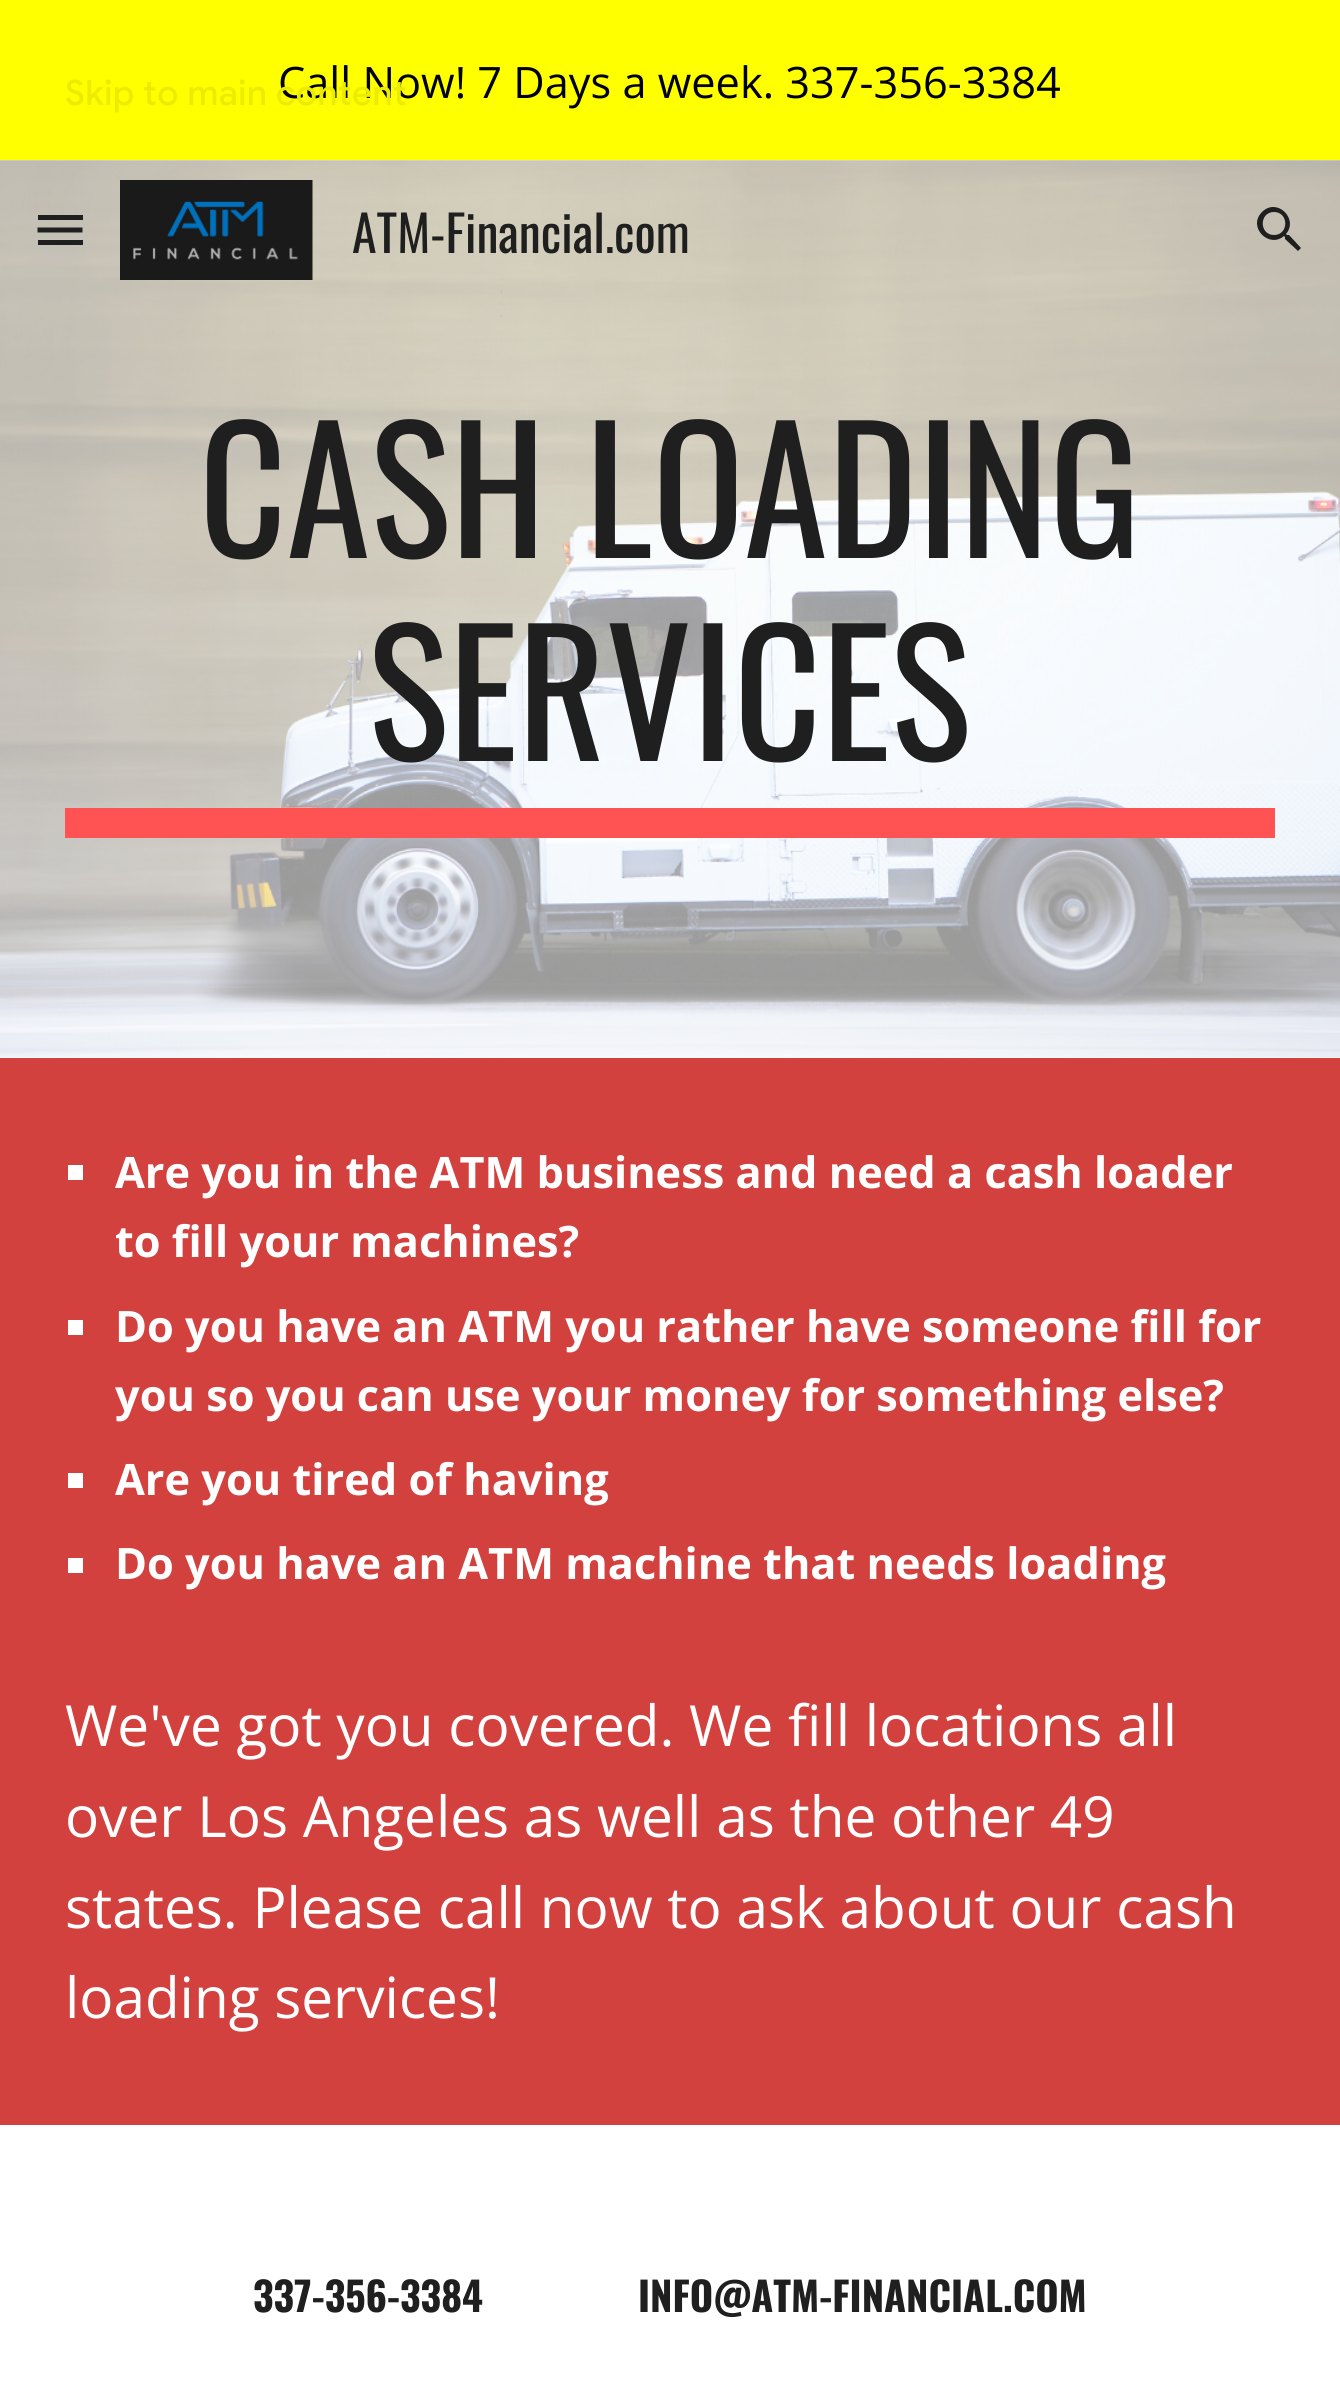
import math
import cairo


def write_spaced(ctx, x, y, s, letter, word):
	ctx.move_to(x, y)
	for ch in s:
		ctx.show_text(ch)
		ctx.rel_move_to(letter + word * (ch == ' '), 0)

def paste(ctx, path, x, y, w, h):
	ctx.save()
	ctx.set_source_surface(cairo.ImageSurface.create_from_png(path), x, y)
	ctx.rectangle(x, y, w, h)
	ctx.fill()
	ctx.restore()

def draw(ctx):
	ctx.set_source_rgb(1, 1, 1)
	ctx.paint()
	ctx.set_source_rgb(1, 1, 0)
	ctx.rectangle(0, 0, 1340, 160)
	ctx.fill()
	ctx.select_font_face('Open Sans')
	ctx.set_font_size(43.3)
	ctx.set_source_rgb(0, 0, 0)
	ctx.move_to(278, 98)
	ctx.show_text('Call Now! 7 Days a week. 337-356-3384')
	paste(ctx, 'media/2.png', 0, 160, 1340, 898)
	ctx.set_source_rgb(0.122, 0.122, 0.122)
	ctx.rectangle(38, 215, 45, 5)
	ctx.fill()
	ctx.new_path()
	ctx.move_to(37.5, 230)
	ctx.line_to(82.5, 230)
	ctx.set_line_width(5)
	ctx.stroke()
	ctx.rectangle(38, 240, 45, 5)
	ctx.fill()
	paste(ctx, 'media/1.png', 120, 180, 193, 100)
	ctx.select_font_face('Oswald')
	ctx.set_font_size(50)
	ctx.move_to(352, 253)
	ctx.show_text('ATM-Financial.com')
	ctx.new_path()
	ctx.move_to(1289, 235)
	ctx.line_to(1287, 235)
	ctx.line_to(1286, 234)
	ctx.curve_to(1299, 219, 1277, 197, 1262, 212)
	ctx.curve_to(1247, 227, 1269, 249, 1284, 236)
	ctx.line_to(1285, 237)
	ctx.line_to(1285, 239)
	ctx.line_to(1298, 251)
	ctx.line_to(1301, 248)
	ctx.close_path()
	ctx.move_to(1274, 235)
	ctx.curve_to(1259, 235, 1259, 212, 1274, 212)
	ctx.curve_to(1289, 212, 1289, 235, 1274, 235)
	ctx.close_path()
	ctx.fill()
	ctx.set_font_size(170)
	ctx.move_to(199, 558)
	ctx.show_text('CASH LOADING')
	ctx.move_to(368, 761)
	ctx.show_text('SERVICES')
	ctx.set_source_rgb(1, 0.322, 0.322)
	ctx.rectangle(65, 808, 1210, 30)
	ctx.fill()
	ctx.set_source_rgb(0.827, 0.255, 0.247)
	ctx.rectangle(0, 1058, 1340, 1067)
	ctx.fill()
	ctx.set_source_rgb(1, 1, 1)
	ctx.rectangle(68, 1165, 15, 15)
	ctx.fill()
	ctx.select_font_face('Open Sans', cairo.FONT_SLANT_NORMAL, cairo.FONT_WEIGHT_BOLD)
	ctx.set_font_size(43.3)
	ctx.move_to(115, 1188)
	ctx.show_text('Are you in the ATM business and need a cash loader')
	ctx.move_to(115, 1257)
	ctx.show_text('to fill your machines?')
	ctx.rectangle(68, 1320, 15, 15)
	ctx.fill()
	ctx.move_to(115, 1342)
	ctx.show_text('Do you have an ATM you rather have someone fill for')
	ctx.move_to(115, 1411)
	ctx.show_text('you so you can use your money for something else?')
	ctx.rectangle(68, 1473, 15, 15)
	ctx.fill()
	ctx.move_to(115, 1495)
	ctx.show_text('Are you tired of having')
	ctx.rectangle(68, 1558, 15, 15)
	ctx.fill()
	ctx.move_to(115, 1579)
	ctx.show_text('Do you have an ATM machine that needs loading')
	ctx.select_font_face('Open Sans')
	ctx.set_font_size(56.7)
	for x, y, s in [
		(65, 1746, 'We\'ve got you covered. We fill locations all'),
		(65, 1837, 'over Los Angeles as well as the other 49'),
		(65, 1928, 'states. Please call now to ask about our cash'),
		(65, 2018, 'loading services!'),
	]:
		ctx.move_to(x, y)
		ctx.show_text(s)
	ctx.select_font_face('Oswald', cairo.FONT_SLANT_NORMAL, cairo.FONT_WEIGHT_BOLD)
	ctx.set_font_size(40)
	ctx.set_source_rgb(0.122, 0.122, 0.122)
	ctx.move_to(253, 2312)
	ctx.show_text('337-356-3384')
	ctx.move_to(638, 2312)
	ctx.show_text('INFO@ATM-FINANCIAL.COM')
	ctx.select_font_face('Google Sans Medium')
	ctx.set_font_size(35)
	ctx.set_source_rgb(0.925, 0.925, 0)
	write_spaced(ctx, 65, 105, 'Skip to main content', 0.4, 0)


surface = cairo.ImageSurface(cairo.FORMAT_RGB24, 1340, 2398)
ctx = cairo.Context(surface)
options = cairo.FontOptions()
options.set_hint_metrics(cairo.HINT_METRICS_OFF)
options.set_hint_style(cairo.HINT_STYLE_NONE)
ctx.set_font_options(options)
ctx.set_miter_limit(4)
draw(ctx)
surface.write_to_png('image.png')
